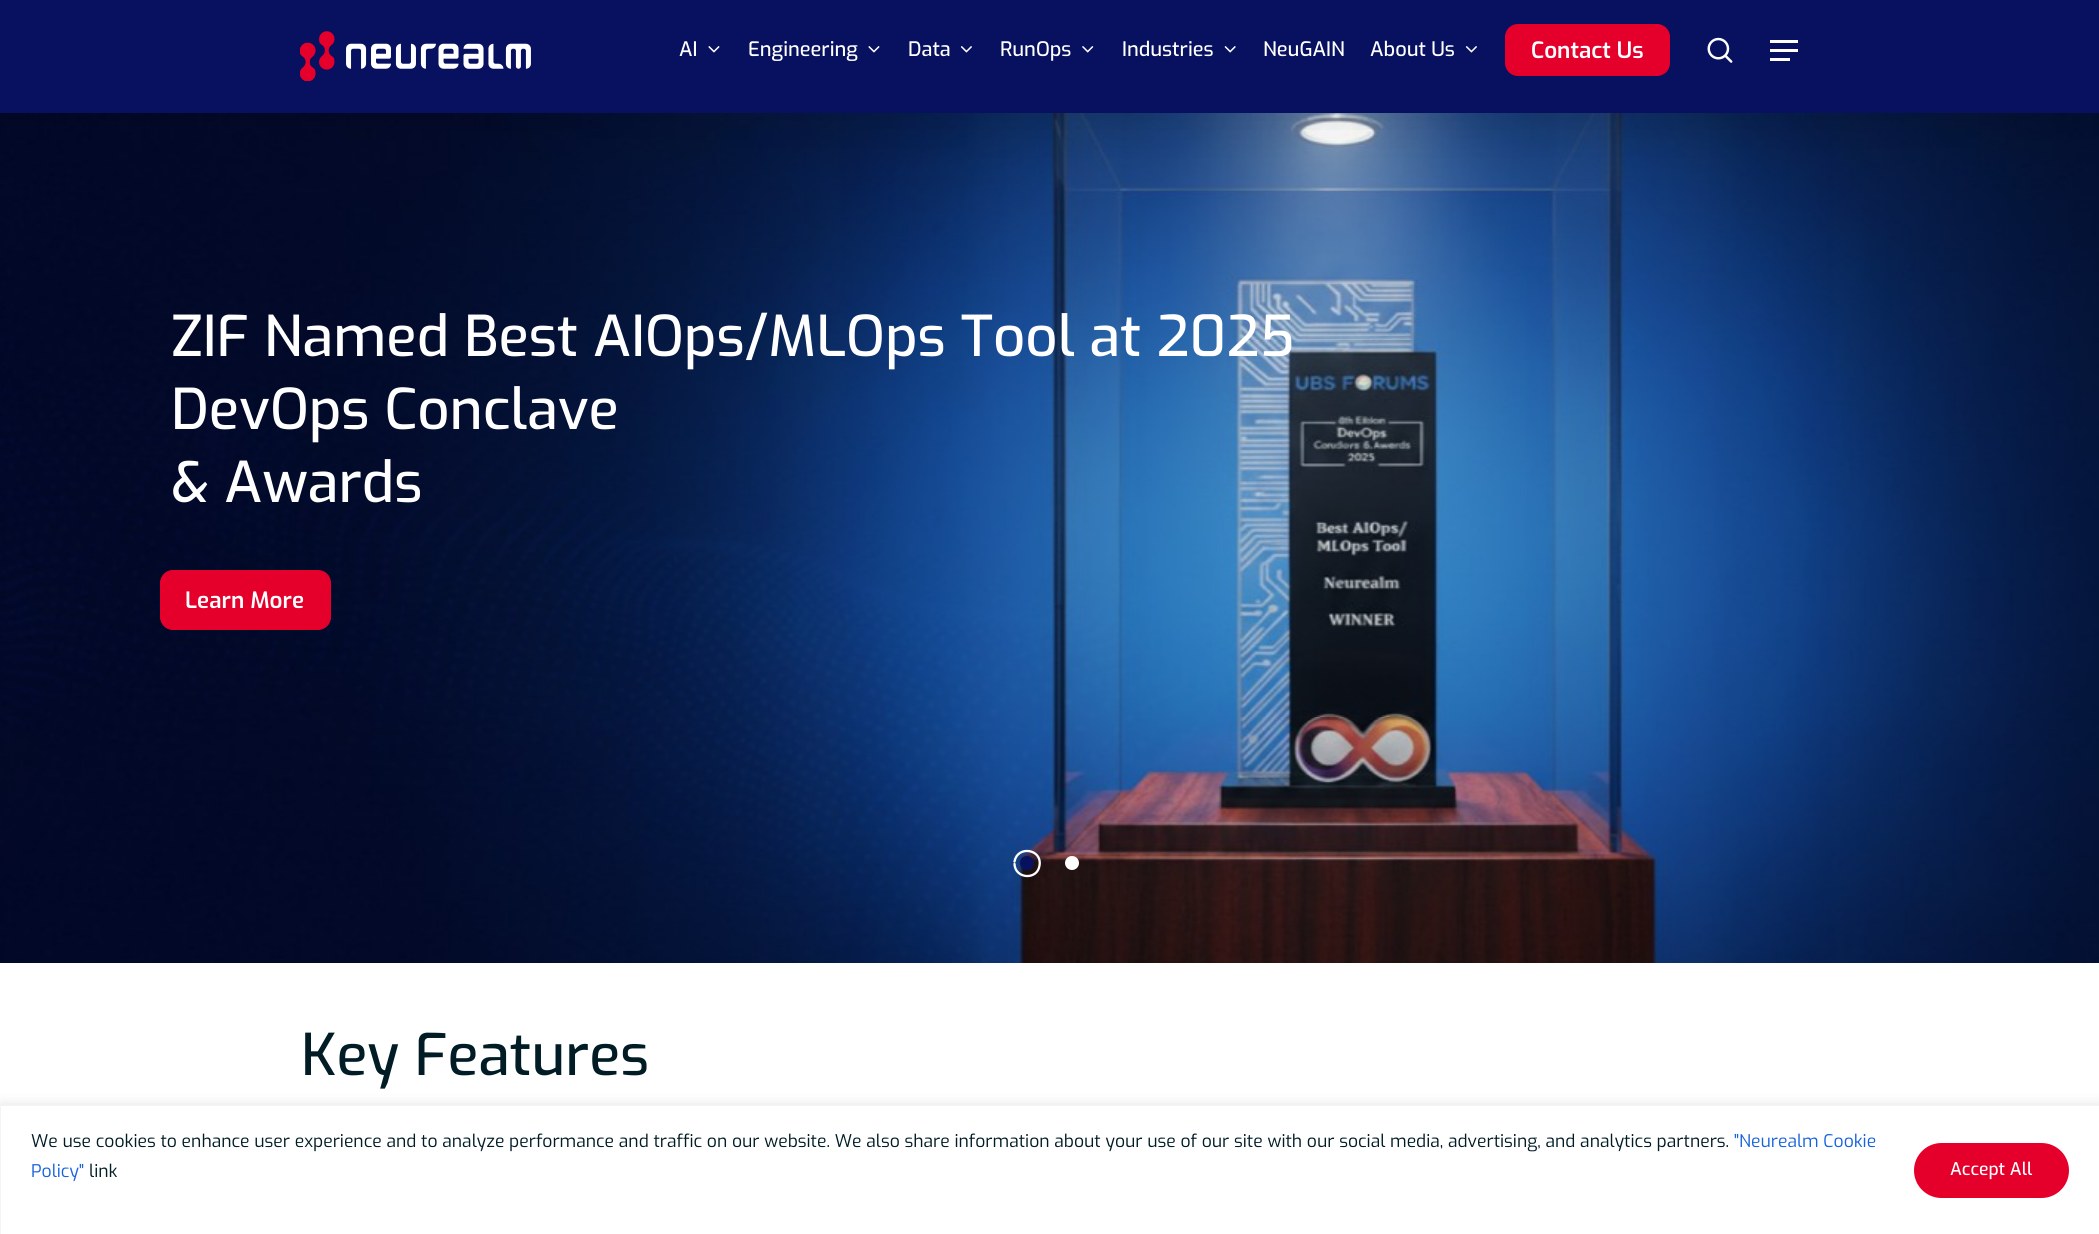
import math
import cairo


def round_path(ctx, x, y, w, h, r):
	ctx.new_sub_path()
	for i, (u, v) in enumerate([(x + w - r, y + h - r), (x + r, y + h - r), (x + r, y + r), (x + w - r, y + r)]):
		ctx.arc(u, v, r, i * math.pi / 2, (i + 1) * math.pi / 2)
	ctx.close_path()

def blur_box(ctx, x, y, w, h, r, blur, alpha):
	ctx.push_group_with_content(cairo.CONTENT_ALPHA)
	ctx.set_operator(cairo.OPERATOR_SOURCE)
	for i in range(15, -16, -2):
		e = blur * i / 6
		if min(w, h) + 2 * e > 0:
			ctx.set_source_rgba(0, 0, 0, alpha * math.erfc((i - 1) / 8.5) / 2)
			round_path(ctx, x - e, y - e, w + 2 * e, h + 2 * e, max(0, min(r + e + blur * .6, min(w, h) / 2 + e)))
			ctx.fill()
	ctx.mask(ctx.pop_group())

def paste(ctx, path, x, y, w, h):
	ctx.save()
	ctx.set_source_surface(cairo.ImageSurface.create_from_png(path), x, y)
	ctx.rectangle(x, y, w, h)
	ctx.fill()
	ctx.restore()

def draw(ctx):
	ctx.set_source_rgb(1, 1, 1)
	ctx.paint()
	paste(ctx, 'media/7.png', 0, 113, 2099, 850)
	ctx.set_source_rgb(0, 0, 0)
	blur_box(ctx, 0, -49, 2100, 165, 0, 28, 0.15)
	ctx.set_source_rgb(0.031, 0.067, 0.376)
	ctx.rectangle(0, 0, 2099, 113)
	ctx.fill()
	paste(ctx, 'media/1.png', 300, 31, 231, 50)
	ctx.select_font_face('Exo Medium')
	ctx.set_font_size(20)
	ctx.set_source_rgb(1, 1, 1)
	ctx.move_to(679, 56)
	ctx.show_text('AI')
	paste(ctx, 'media/2.png', 708, 46, 12, 7)
	ctx.move_to(748, 56)
	ctx.show_text('Engineering')
	paste(ctx, 'media/2.png', 868, 46, 12, 7)
	ctx.move_to(908, 56)
	ctx.show_text('Data')
	paste(ctx, 'media/3.png', 960, 46, 12, 7)
	ctx.move_to(1000, 56)
	ctx.show_text('RunOps')
	paste(ctx, 'media/4.png', 1082, 46, 12, 7)
	ctx.move_to(1122, 56)
	ctx.show_text('Industries')
	paste(ctx, 'media/5.png', 1224, 46, 12, 7)
	ctx.move_to(1263, 56)
	ctx.show_text('NeuGAIN')
	ctx.move_to(1370, 56)
	ctx.show_text('About Us')
	paste(ctx, 'media/3.png', 1465, 46, 12, 7)
	ctx.set_source_rgb(0.898, 0, 0.169)
	round_path(ctx, 1505.5, 24.5, 164, 51, 12.5)
	ctx.fill_preserve()
	ctx.set_line_width(1)
	ctx.stroke()
	ctx.select_font_face('Exo SemiBold')
	ctx.set_font_size(22.5)
	ctx.set_source_rgb(1, 1, 1)
	ctx.move_to(1531, 58)
	ctx.show_text('Contact Us')
	paste(ctx, 'media/6.png', 1707, 37, 26, 26)
	ctx.rectangle(1770, 40, 28, 3)
	ctx.rectangle(1770, 58, 20, 3)
	ctx.rectangle(1770, 49, 28, 3)
	ctx.fill()
	ctx.select_font_face('Exo Medium')
	ctx.set_font_size(56.25)
	for x, y, s in [
		(171, 356, 'ZIF Named Best AIOps/MLOps Tool at 2025'),
		(171, 429, 'DevOps Conclave'),
		(171, 502, '& Awards'),
	]:
		ctx.move_to(x, y)
		ctx.show_text(s)
	ctx.set_source_rgb(0.898, 0, 0.169)
	round_path(ctx, 160.5, 570.5, 170, 59, 12.5)
	ctx.fill_preserve()
	ctx.stroke()
	ctx.select_font_face('Exo SemiBold')
	ctx.set_font_size(22.5)
	ctx.set_source_rgb(1, 1, 1)
	ctx.move_to(185, 608)
	ctx.show_text('Learn More')
	ctx.set_source_rgb(0.031, 0.067, 0.376)
	ctx.new_path()
	ctx.arc(1027, 863, 7, 0, 2 * math.pi)
	ctx.fill()
	ctx.new_path()
	ctx.move_to(1014.5, 861.5)
	ctx.curve_to(1017.5, 845, 1042.5, 849, 1039.5, 865.5)
	ctx.curve_to(1037.5, 880.5, 1015, 879, 1014.5, 864)
	ctx.set_source_rgb(1, 1, 1)
	ctx.set_line_width(2.3)
	ctx.set_line_cap(cairo.LINE_CAP_ROUND)
	ctx.stroke()
	ctx.arc(1072, 863, 7, 0, 2 * math.pi)
	ctx.fill()
	ctx.select_font_face('Exo Medium')
	ctx.set_font_size(57.5)
	ctx.set_source_rgb(0.004, 0.11, 0.145)
	ctx.move_to(301, 1075)
	ctx.show_text('Key Features')
	ctx.set_source_rgb(0.675, 0.671, 0.671)
	blur_box(ctx, 0, 1104, 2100, 130, 0, 6, 0.3)
	ctx.set_source_rgb(1, 1, 1)
	ctx.rectangle(0.5, 1105.5, 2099, 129)
	ctx.fill_preserve()
	ctx.set_source_rgb(0.957, 0.957, 0.957)
	ctx.set_line_width(1)
	ctx.set_line_cap(cairo.LINE_CAP_BUTT)
	ctx.stroke()
	ctx.select_font_face('Exo')
	ctx.set_font_size(17.5)
	ctx.set_source_rgb(0.004, 0.11, 0.145)
	ctx.move_to(31, 1147)
	ctx.show_text('We use cookies to enhance user experience and to analyze performance and traffic on our website. We also share information about your use of our site with our social media, advertising, and analytics partners.')
	ctx.set_source_rgb(0.094, 0.388, 0.863)
	ctx.move_to(1734, 1147)
	ctx.show_text('"Neurealm Cookie')
	ctx.move_to(31, 1177)
	ctx.show_text('Policy"')
	ctx.set_source_rgb(0.004, 0.11, 0.145)
	ctx.move_to(89, 1177)
	ctx.show_text('link')
	ctx.set_source_rgb(0.898, 0, 0.169)
	round_path(ctx, 1915.5, 1144.5, 152, 52, 26)
	ctx.fill_preserve()
	ctx.set_line_width(3)
	ctx.stroke()
	ctx.select_font_face('Exo Medium')
	ctx.set_source_rgb(1, 1, 1)
	ctx.move_to(1950, 1175)
	ctx.show_text('Accept All')


surface = cairo.ImageSurface(cairo.FORMAT_RGB24, 2099, 1234)
ctx = cairo.Context(surface)
options = cairo.FontOptions()
options.set_hint_metrics(cairo.HINT_METRICS_OFF)
options.set_hint_style(cairo.HINT_STYLE_NONE)
ctx.set_font_options(options)
ctx.set_miter_limit(4)
draw(ctx)
surface.write_to_png('image.png')
